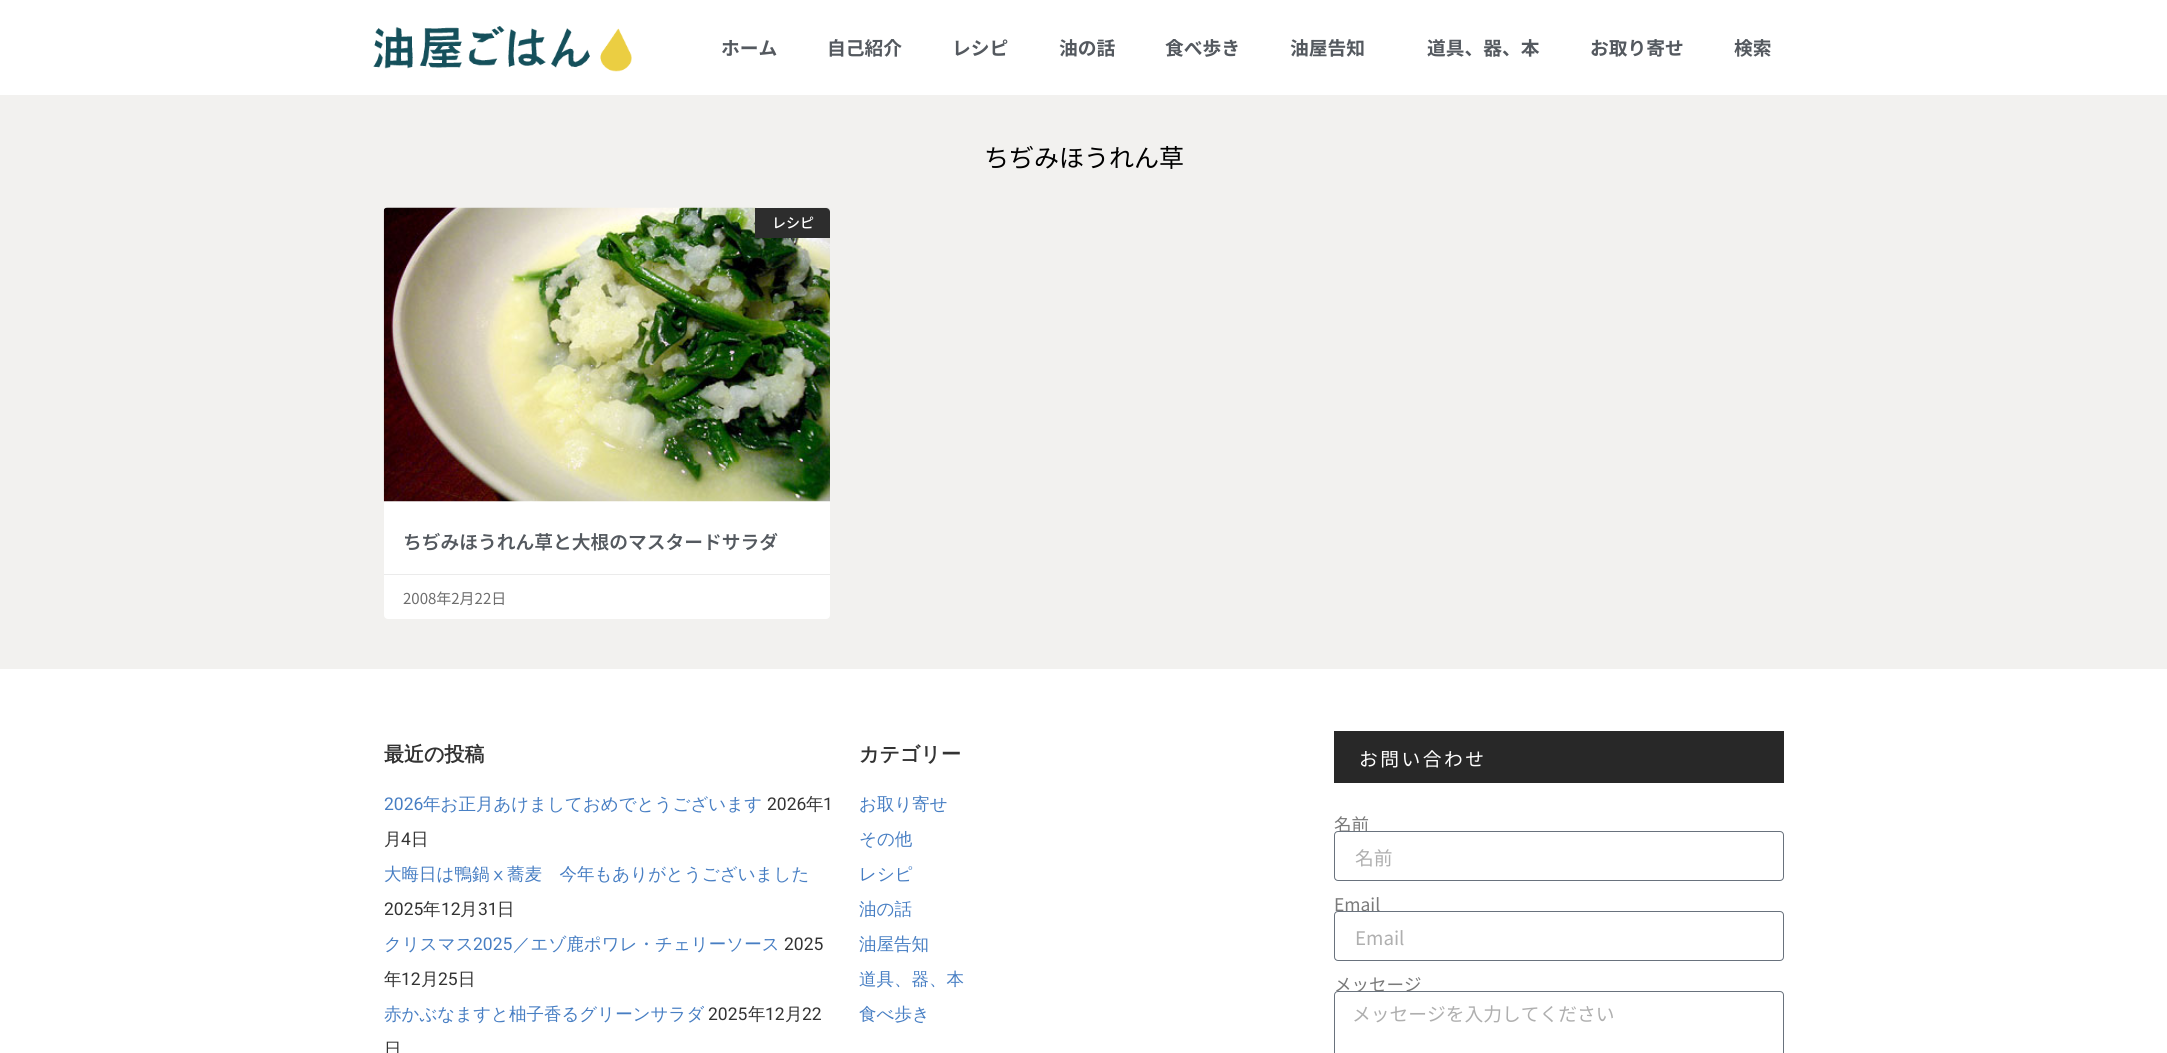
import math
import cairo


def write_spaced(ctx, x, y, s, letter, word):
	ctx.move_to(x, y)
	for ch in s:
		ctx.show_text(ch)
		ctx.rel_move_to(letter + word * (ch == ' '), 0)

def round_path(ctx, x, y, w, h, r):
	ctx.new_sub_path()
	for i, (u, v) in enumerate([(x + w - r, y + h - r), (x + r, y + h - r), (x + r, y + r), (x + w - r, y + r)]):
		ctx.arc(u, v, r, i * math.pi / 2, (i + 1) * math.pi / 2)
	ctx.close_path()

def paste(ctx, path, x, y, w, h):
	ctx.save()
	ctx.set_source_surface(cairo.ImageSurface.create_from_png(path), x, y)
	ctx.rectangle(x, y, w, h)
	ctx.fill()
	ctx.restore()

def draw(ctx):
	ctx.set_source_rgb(1, 1, 1)
	ctx.paint()
	paste(ctx, 'media/1.png', 373, 26, 259, 46)
	ctx.select_font_face('Noto Sans JP', cairo.FONT_SLANT_NORMAL, cairo.FONT_WEIGHT_BOLD)
	ctx.set_font_size(18.75)
	ctx.set_source_rgb(0.329, 0.349, 0.373)
	for x, y, s in [
		(721, 55, 'ホーム'),
		(827, 55, '自己紹介'),
		(952, 55, 'レシピ'),
		(1059, 55, '油の話'),
		(1165, 55, '食べ歩き'),
		(1290, 55, '油屋告知'),
		(1427, 55, '道具、器、本'),
		(1590, 55, 'お取り寄せ'),
		(1734, 55, '検索'),
	]:
		ctx.move_to(x, y)
		ctx.show_text(s)
	ctx.set_source_rgb(0.949, 0.945, 0.937)
	ctx.rectangle(0, 95, 2167, 574)
	ctx.fill()
	ctx.select_font_face('Noto Sans JP')
	ctx.set_font_size(25)
	ctx.set_source_rgb(0, 0, 0)
	ctx.move_to(984, 167)
	ctx.show_text('ちぢみほうれん草')
	ctx.set_source_rgb(1, 1, 1)
	round_path(ctx, 384, 208, 446, 411, 4)
	ctx.fill()
	paste(ctx, 'media/2.png', 383, 207, 447, 295)
	ctx.set_source_rgb(0.176, 0.176, 0.176)
	ctx.new_path()
	ctx.move_to(755, 208)
	ctx.line_to(826, 208)
	ctx.curve_to(828, 208, 830, 210, 830, 212)
	ctx.line_to(830, 238)
	ctx.line_to(755, 238)
	ctx.close_path()
	ctx.fill()
	ctx.select_font_face('Noto Sans JP Medium')
	ctx.set_font_size(14)
	ctx.set_source_rgb(1, 1, 1)
	ctx.move_to(772, 228)
	ctx.show_text('レシピ')
	ctx.select_font_face('Noto Sans JP SemiBold')
	ctx.set_font_size(18.75)
	ctx.set_source_rgb(0.329, 0.349, 0.373)
	ctx.move_to(403, 549)
	ctx.show_text('ちぢみほうれん草と大根のマスタードサラダ')
	ctx.set_source_rgb(0.918, 0.918, 0.918)
	ctx.rectangle(384, 574, 446, 1)
	ctx.fill()
	ctx.select_font_face('Noto Sans JP')
	ctx.set_font_size(15)
	ctx.set_source_rgb(0.427, 0.427, 0.427)
	ctx.move_to(403, 604)
	ctx.show_text('2008年2月22日')
	ctx.select_font_face('WenQuanYi Zen Hei', cairo.FONT_SLANT_NORMAL, cairo.FONT_WEIGHT_BOLD)
	ctx.set_font_size(20)
	ctx.set_source_rgb(0.2, 0.2, 0.2)
	ctx.move_to(384, 761)
	ctx.show_text('最近の投稿')
	ctx.select_font_face('Roboto')
	ctx.set_font_size(17.5)
	ctx.set_source_rgb(0.278, 0.494, 0.765)
	ctx.move_to(384, 810)
	ctx.show_text('2026')
	ctx.select_font_face('WenQuanYi Zen Hei Medium')
	ctx.move_to(423, 810)
	ctx.show_text('年お正月あけましておめでとうございます')
	ctx.select_font_face('Roboto')
	ctx.set_source_rgb(0.2, 0.2, 0.2)
	ctx.move_to(767, 810)
	ctx.show_text('2026')
	ctx.select_font_face('WenQuanYi Zen Hei Medium')
	ctx.move_to(806, 810)
	ctx.show_text('年')
	ctx.select_font_face('Roboto')
	ctx.move_to(823, 810)
	ctx.show_text('1')
	ctx.select_font_face('WenQuanYi Zen Hei Medium')
	ctx.move_to(384, 845)
	ctx.show_text('月')
	ctx.select_font_face('Roboto')
	ctx.move_to(401, 845)
	ctx.show_text('4')
	ctx.select_font_face('WenQuanYi Zen Hei Medium')
	ctx.move_to(411, 845)
	ctx.show_text('日')
	ctx.set_source_rgb(0.278, 0.494, 0.765)
	ctx.move_to(384, 880)
	ctx.show_text('大晦日は鴨鍋ⅹ蕎麦　今年もありがとうございました')
	ctx.select_font_face('Roboto')
	ctx.set_source_rgb(0.2, 0.2, 0.2)
	ctx.move_to(384, 915)
	ctx.show_text('2025')
	ctx.select_font_face('WenQuanYi Zen Hei Medium')
	ctx.move_to(423, 915)
	ctx.show_text('年')
	ctx.select_font_face('Roboto')
	ctx.move_to(441, 915)
	ctx.show_text('12')
	ctx.select_font_face('WenQuanYi Zen Hei Medium')
	ctx.move_to(460, 915)
	ctx.show_text('月')
	ctx.select_font_face('Roboto')
	ctx.move_to(478, 915)
	ctx.show_text('31')
	ctx.select_font_face('WenQuanYi Zen Hei Medium')
	ctx.move_to(497, 915)
	ctx.show_text('日')
	ctx.set_source_rgb(0.278, 0.494, 0.765)
	ctx.move_to(384, 950)
	ctx.show_text('クリスマス')
	ctx.select_font_face('Roboto')
	ctx.move_to(473, 950)
	ctx.show_text('2025')
	ctx.select_font_face('WenQuanYi Zen Hei Medium')
	ctx.move_to(513, 950)
	ctx.show_text('／エゾ鹿ポワレ・チェリーソース')
	ctx.select_font_face('Roboto')
	ctx.set_source_rgb(0.2, 0.2, 0.2)
	ctx.move_to(784, 950)
	ctx.show_text('2025')
	ctx.select_font_face('WenQuanYi Zen Hei Medium')
	ctx.move_to(384, 985)
	ctx.show_text('年')
	ctx.select_font_face('Roboto')
	ctx.move_to(401, 985)
	ctx.show_text('12')
	ctx.select_font_face('WenQuanYi Zen Hei Medium')
	ctx.move_to(421, 985)
	ctx.show_text('月')
	ctx.select_font_face('Roboto')
	ctx.move_to(438, 985)
	ctx.show_text('25')
	ctx.select_font_face('WenQuanYi Zen Hei Medium')
	ctx.move_to(458, 985)
	ctx.show_text('日')
	ctx.set_source_rgb(0.278, 0.494, 0.765)
	ctx.move_to(384, 1020)
	ctx.show_text('赤かぶなますと柚子香るグリーンサラダ')
	ctx.select_font_face('Roboto')
	ctx.set_source_rgb(0.2, 0.2, 0.2)
	ctx.move_to(708, 1020)
	ctx.show_text('2025')
	ctx.select_font_face('WenQuanYi Zen Hei Medium')
	ctx.move_to(748, 1020)
	ctx.show_text('年')
	ctx.select_font_face('Roboto')
	ctx.move_to(765, 1020)
	ctx.show_text('12')
	ctx.select_font_face('WenQuanYi Zen Hei Medium')
	ctx.move_to(785, 1020)
	ctx.show_text('月')
	ctx.select_font_face('Roboto')
	ctx.move_to(802, 1020)
	ctx.show_text('22')
	ctx.select_font_face('WenQuanYi Zen Hei Medium')
	ctx.move_to(384, 1055)
	ctx.show_text('日')
	ctx.select_font_face('WenQuanYi Zen Hei', cairo.FONT_SLANT_NORMAL, cairo.FONT_WEIGHT_BOLD)
	ctx.set_font_size(20)
	ctx.move_to(859, 761)
	ctx.show_text('カテゴリー')
	ctx.select_font_face('WenQuanYi Zen Hei Medium')
	ctx.set_font_size(17.5)
	ctx.set_source_rgb(0.278, 0.494, 0.765)
	for x, y, s in [
		(859, 810, 'お取り寄せ'),
		(859, 845, 'その他'),
		(859, 880, 'レシピ'),
		(859, 915, '油の話'),
		(859, 950, '油屋告知'),
		(859, 985, '道具、器、本'),
		(859, 1020, '食べ歩き'),
	]:
		ctx.move_to(x, y)
		ctx.show_text(s)
	ctx.set_source_rgb(0.157, 0.157, 0.157)
	ctx.rectangle(1334, 731, 450, 52)
	ctx.fill()
	ctx.select_font_face('Noto Sans JP')
	ctx.set_font_size(18.75)
	ctx.set_source_rgb(1, 1, 1)
	write_spaced(ctx, 1359, 766, 'お問い合わせ', 2.5, 0)
	ctx.set_font_size(17.5)
	ctx.set_source_rgb(0.478, 0.478, 0.478)
	ctx.move_to(1334, 831)
	ctx.show_text('名前')
	ctx.set_source_rgb(1, 1, 1)
	round_path(ctx, 1334.5, 831.5, 449, 49, 3.5)
	ctx.fill_preserve()
	ctx.set_source_rgb(0.412, 0.447, 0.49)
	ctx.set_line_width(1)
	ctx.stroke()
	ctx.set_font_size(18.75)
	ctx.set_source_rgb(0.686, 0.686, 0.686)
	ctx.move_to(1355, 865)
	ctx.show_text('名前')
	ctx.set_font_size(17.5)
	ctx.set_source_rgb(0.478, 0.478, 0.478)
	ctx.move_to(1334, 911)
	ctx.show_text('Email')
	ctx.set_source_rgb(1, 1, 1)
	round_path(ctx, 1334.5, 911.5, 449, 49, 3.5)
	ctx.fill_preserve()
	ctx.set_source_rgb(0.412, 0.447, 0.49)
	ctx.stroke()
	ctx.set_font_size(18.75)
	ctx.set_source_rgb(0.686, 0.686, 0.686)
	ctx.move_to(1355, 945)
	ctx.show_text('Email')
	ctx.set_font_size(17.5)
	ctx.set_source_rgb(0.478, 0.478, 0.478)
	ctx.move_to(1334, 991)
	ctx.show_text('メッセージ')
	ctx.set_source_rgb(1, 1, 1)
	round_path(ctx, 1334.5, 991.5, 449, 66, 3.5)
	ctx.fill_preserve()
	ctx.set_source_rgb(0.412, 0.447, 0.49)
	ctx.stroke()
	ctx.set_font_size(18.75)
	ctx.set_source_rgb(0.686, 0.686, 0.686)
	ctx.move_to(1352, 1021)
	ctx.show_text('メッセージを入力してください')


surface = cairo.ImageSurface(cairo.FORMAT_RGB24, 2167, 1053)
ctx = cairo.Context(surface)
options = cairo.FontOptions()
options.set_hint_metrics(cairo.HINT_METRICS_OFF)
options.set_hint_style(cairo.HINT_STYLE_NONE)
ctx.set_font_options(options)
ctx.set_miter_limit(4)
draw(ctx)
surface.write_to_png('image.png')
